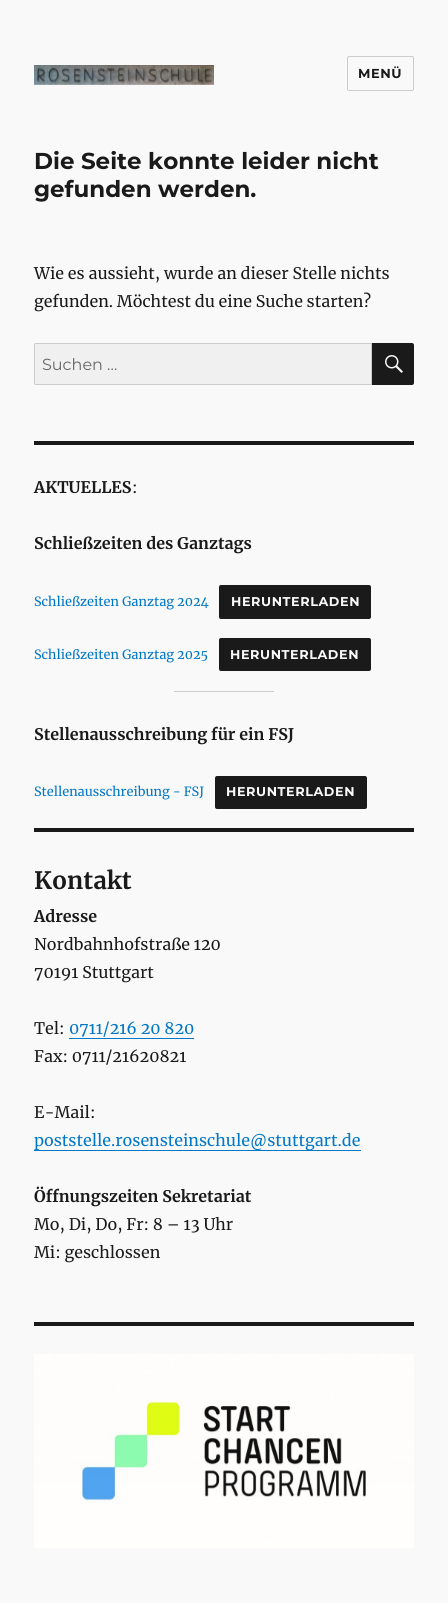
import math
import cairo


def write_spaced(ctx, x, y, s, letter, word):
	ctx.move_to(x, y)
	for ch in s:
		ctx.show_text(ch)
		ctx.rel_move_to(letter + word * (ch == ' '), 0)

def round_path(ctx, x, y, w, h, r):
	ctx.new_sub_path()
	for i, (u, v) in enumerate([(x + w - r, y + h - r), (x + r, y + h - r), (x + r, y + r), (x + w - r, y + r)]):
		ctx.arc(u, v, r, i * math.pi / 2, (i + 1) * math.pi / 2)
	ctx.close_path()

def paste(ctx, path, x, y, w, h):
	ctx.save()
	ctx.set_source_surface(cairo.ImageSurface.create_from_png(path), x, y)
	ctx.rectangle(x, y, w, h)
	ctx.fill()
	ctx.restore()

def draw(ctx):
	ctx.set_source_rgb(0.973, 0.973, 0.973)
	ctx.paint()
	paste(ctx, 'media/1.png', 34, 65, 180, 20)
	round_path(ctx, 347.5, 56.5, 66, 34, 1.5)
	ctx.set_source_rgb(0.8, 0.8, 0.8)
	ctx.set_line_width(1)
	ctx.stroke()
	ctx.select_font_face('Montserrat Thin')
	ctx.set_font_size(13)
	ctx.set_source_rgb(0.102, 0.102, 0.102)
	write_spaced(ctx, 358, 78, 'MENÜ', 0.5, 0)
	ctx.set_font_size(23)
	ctx.move_to(34, 169)
	ctx.show_text('Die Seite konnte leider nicht')
	ctx.move_to(34, 197)
	ctx.show_text('gefunden werden.')
	ctx.select_font_face('Merriweather')
	ctx.set_font_size(16)
	ctx.move_to(34, 279)
	ctx.show_text('Wie es aussieht, wurde an dieser Stelle nichts')
	ctx.move_to(34, 307)
	ctx.show_text('gefunden. Möchtest du eine Suche starten?')
	ctx.set_source_rgb(0.941, 0.941, 0.941)
	ctx.new_path()
	ctx.move_to(36, 343.5)
	ctx.line_to(371.5, 343.5)
	ctx.line_to(371.5, 384.5)
	ctx.line_to(36, 384.5)
	ctx.curve_to(35, 384.5, 34.5, 384, 34.5, 383)
	ctx.line_to(34.5, 345)
	ctx.curve_to(34.5, 344, 35, 343.5, 36, 343.5)
	ctx.close_path()
	ctx.fill_preserve()
	ctx.set_source_rgb(0.8, 0.8, 0.8)
	ctx.stroke()
	ctx.select_font_face('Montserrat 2 Thin')
	ctx.set_source_rgb(0.4, 0.4, 0.4)
	ctx.move_to(42, 370)
	ctx.show_text('Suchen …')
	ctx.set_source_rgb(0.102, 0.102, 0.102)
	ctx.new_path()
	ctx.move_to(372, 343)
	ctx.line_to(412, 343)
	ctx.curve_to(413, 343, 414, 344, 414, 345)
	ctx.line_to(414, 383)
	ctx.curve_to(414, 384, 413, 385, 412, 385)
	ctx.line_to(372, 385)
	ctx.close_path()
	ctx.fill()
	paste(ctx, 'media/2.png', 385, 355, 18, 18)
	ctx.rectangle(34, 441, 380, 4)
	ctx.fill()
	ctx.select_font_face('Merriweather', cairo.FONT_SLANT_NORMAL, cairo.FONT_WEIGHT_BOLD)
	ctx.move_to(34, 493)
	ctx.show_text('AKTUELLES')
	ctx.select_font_face('Merriweather')
	ctx.move_to(132, 493)
	ctx.show_text(':')
	ctx.select_font_face('Merriweather', cairo.FONT_SLANT_NORMAL, cairo.FONT_WEIGHT_BOLD)
	ctx.move_to(34, 549)
	ctx.show_text('Schließzeiten des Ganztags')
	ctx.select_font_face('Merriweather')
	ctx.set_font_size(12.75)
	ctx.set_source_rgb(0.004, 0.467, 0.78)
	ctx.move_to(34, 606)
	ctx.show_text('Schließzeiten Ganztag 2024')
	ctx.set_source_rgb(0.102, 0.102, 0.102)
	round_path(ctx, 219, 585, 152, 34, 2)
	ctx.fill()
	ctx.select_font_face('Montserrat Thin')
	ctx.set_source_rgb(0.973, 0.973, 0.973)
	write_spaced(ctx, 231, 606, 'HERUNTERLADEN', 0.6, 0)
	ctx.select_font_face('Merriweather')
	ctx.set_source_rgb(0.004, 0.467, 0.78)
	ctx.move_to(34, 659)
	ctx.show_text('Schließzeiten Ganztag 2025')
	ctx.set_source_rgb(0.102, 0.102, 0.102)
	round_path(ctx, 219, 638, 152, 33, 2)
	ctx.fill()
	ctx.select_font_face('Montserrat Thin')
	ctx.set_source_rgb(0.973, 0.973, 0.973)
	write_spaced(ctx, 230, 659, 'HERUNTERLADEN', 0.6, 0)
	ctx.set_source_rgb(0.8, 0.8, 0.8)
	ctx.rectangle(174, 691, 100, 1)
	ctx.fill()
	ctx.select_font_face('Merriweather', cairo.FONT_SLANT_NORMAL, cairo.FONT_WEIGHT_BOLD)
	ctx.set_font_size(16)
	ctx.set_source_rgb(0.102, 0.102, 0.102)
	ctx.move_to(34, 740)
	ctx.show_text('Stellenausschreibung für ein FSJ')
	ctx.select_font_face('Merriweather')
	ctx.set_font_size(12.75)
	ctx.set_source_rgb(0.004, 0.467, 0.78)
	ctx.move_to(34, 796)
	ctx.show_text('Stellenausschreibung - FSJ')
	ctx.set_source_rgb(0.102, 0.102, 0.102)
	round_path(ctx, 215, 776, 152, 33, 2)
	ctx.fill()
	ctx.select_font_face('Montserrat Thin')
	ctx.set_source_rgb(0.973, 0.973, 0.973)
	write_spaced(ctx, 226, 796, 'HERUNTERLADEN', 0.6, 0)
	ctx.set_source_rgb(0.102, 0.102, 0.102)
	ctx.rectangle(34, 828, 380, 4)
	ctx.fill()
	ctx.select_font_face('Merriweather', cairo.FONT_SLANT_NORMAL, cairo.FONT_WEIGHT_BOLD)
	ctx.set_font_size(24)
	ctx.move_to(34, 889)
	ctx.show_text('Kontakt')
	ctx.set_font_size(16)
	ctx.move_to(34, 922)
	ctx.show_text('Adresse')
	ctx.select_font_face('Merriweather')
	for x, y, s in [
		(34, 950, 'Nordbahnhofstraße 120'),
		(34, 978, '70191 Stuttgart'),
		(34, 1034, 'Tel:'),
	]:
		ctx.move_to(x, y)
		ctx.show_text(s)
	ctx.set_source_rgb(0.004, 0.467, 0.78)
	ctx.move_to(69, 1034)
	ctx.show_text('0711/216 20 820')
	ctx.rectangle(69, 1038, 125, 1)
	ctx.fill()
	ctx.set_source_rgb(0.102, 0.102, 0.102)
	ctx.move_to(34, 1062)
	ctx.show_text('Fax: 0711/21620821')
	ctx.move_to(34, 1118)
	ctx.show_text('E-Mail:')
	ctx.set_source_rgb(0.004, 0.467, 0.78)
	ctx.rectangle(34, 1150, 327, 1)
	ctx.fill()
	ctx.move_to(34, 1146)
	ctx.show_text('poststelle.rosensteinschule@stuttgart.de')
	ctx.select_font_face('Merriweather', cairo.FONT_SLANT_NORMAL, cairo.FONT_WEIGHT_BOLD)
	ctx.set_source_rgb(0.102, 0.102, 0.102)
	ctx.move_to(34, 1202)
	ctx.show_text('Öffnungszeiten Sekretariat')
	ctx.select_font_face('Merriweather')
	ctx.move_to(34, 1230)
	ctx.show_text('Mo, Di, Do, Fr: 8 – 13 Uhr')
	ctx.move_to(34, 1258)
	ctx.show_text('Mi: geschlossen')
	ctx.rectangle(34, 1322, 380, 4)
	ctx.fill()
	paste(ctx, 'media/3.png', 34, 1354, 380, 194)


surface = cairo.ImageSurface(cairo.FORMAT_RGB24, 448, 1603)
ctx = cairo.Context(surface)
options = cairo.FontOptions()
options.set_hint_metrics(cairo.HINT_METRICS_OFF)
options.set_hint_style(cairo.HINT_STYLE_NONE)
ctx.set_font_options(options)
ctx.set_miter_limit(4)
draw(ctx)
surface.write_to_png('image.png')
